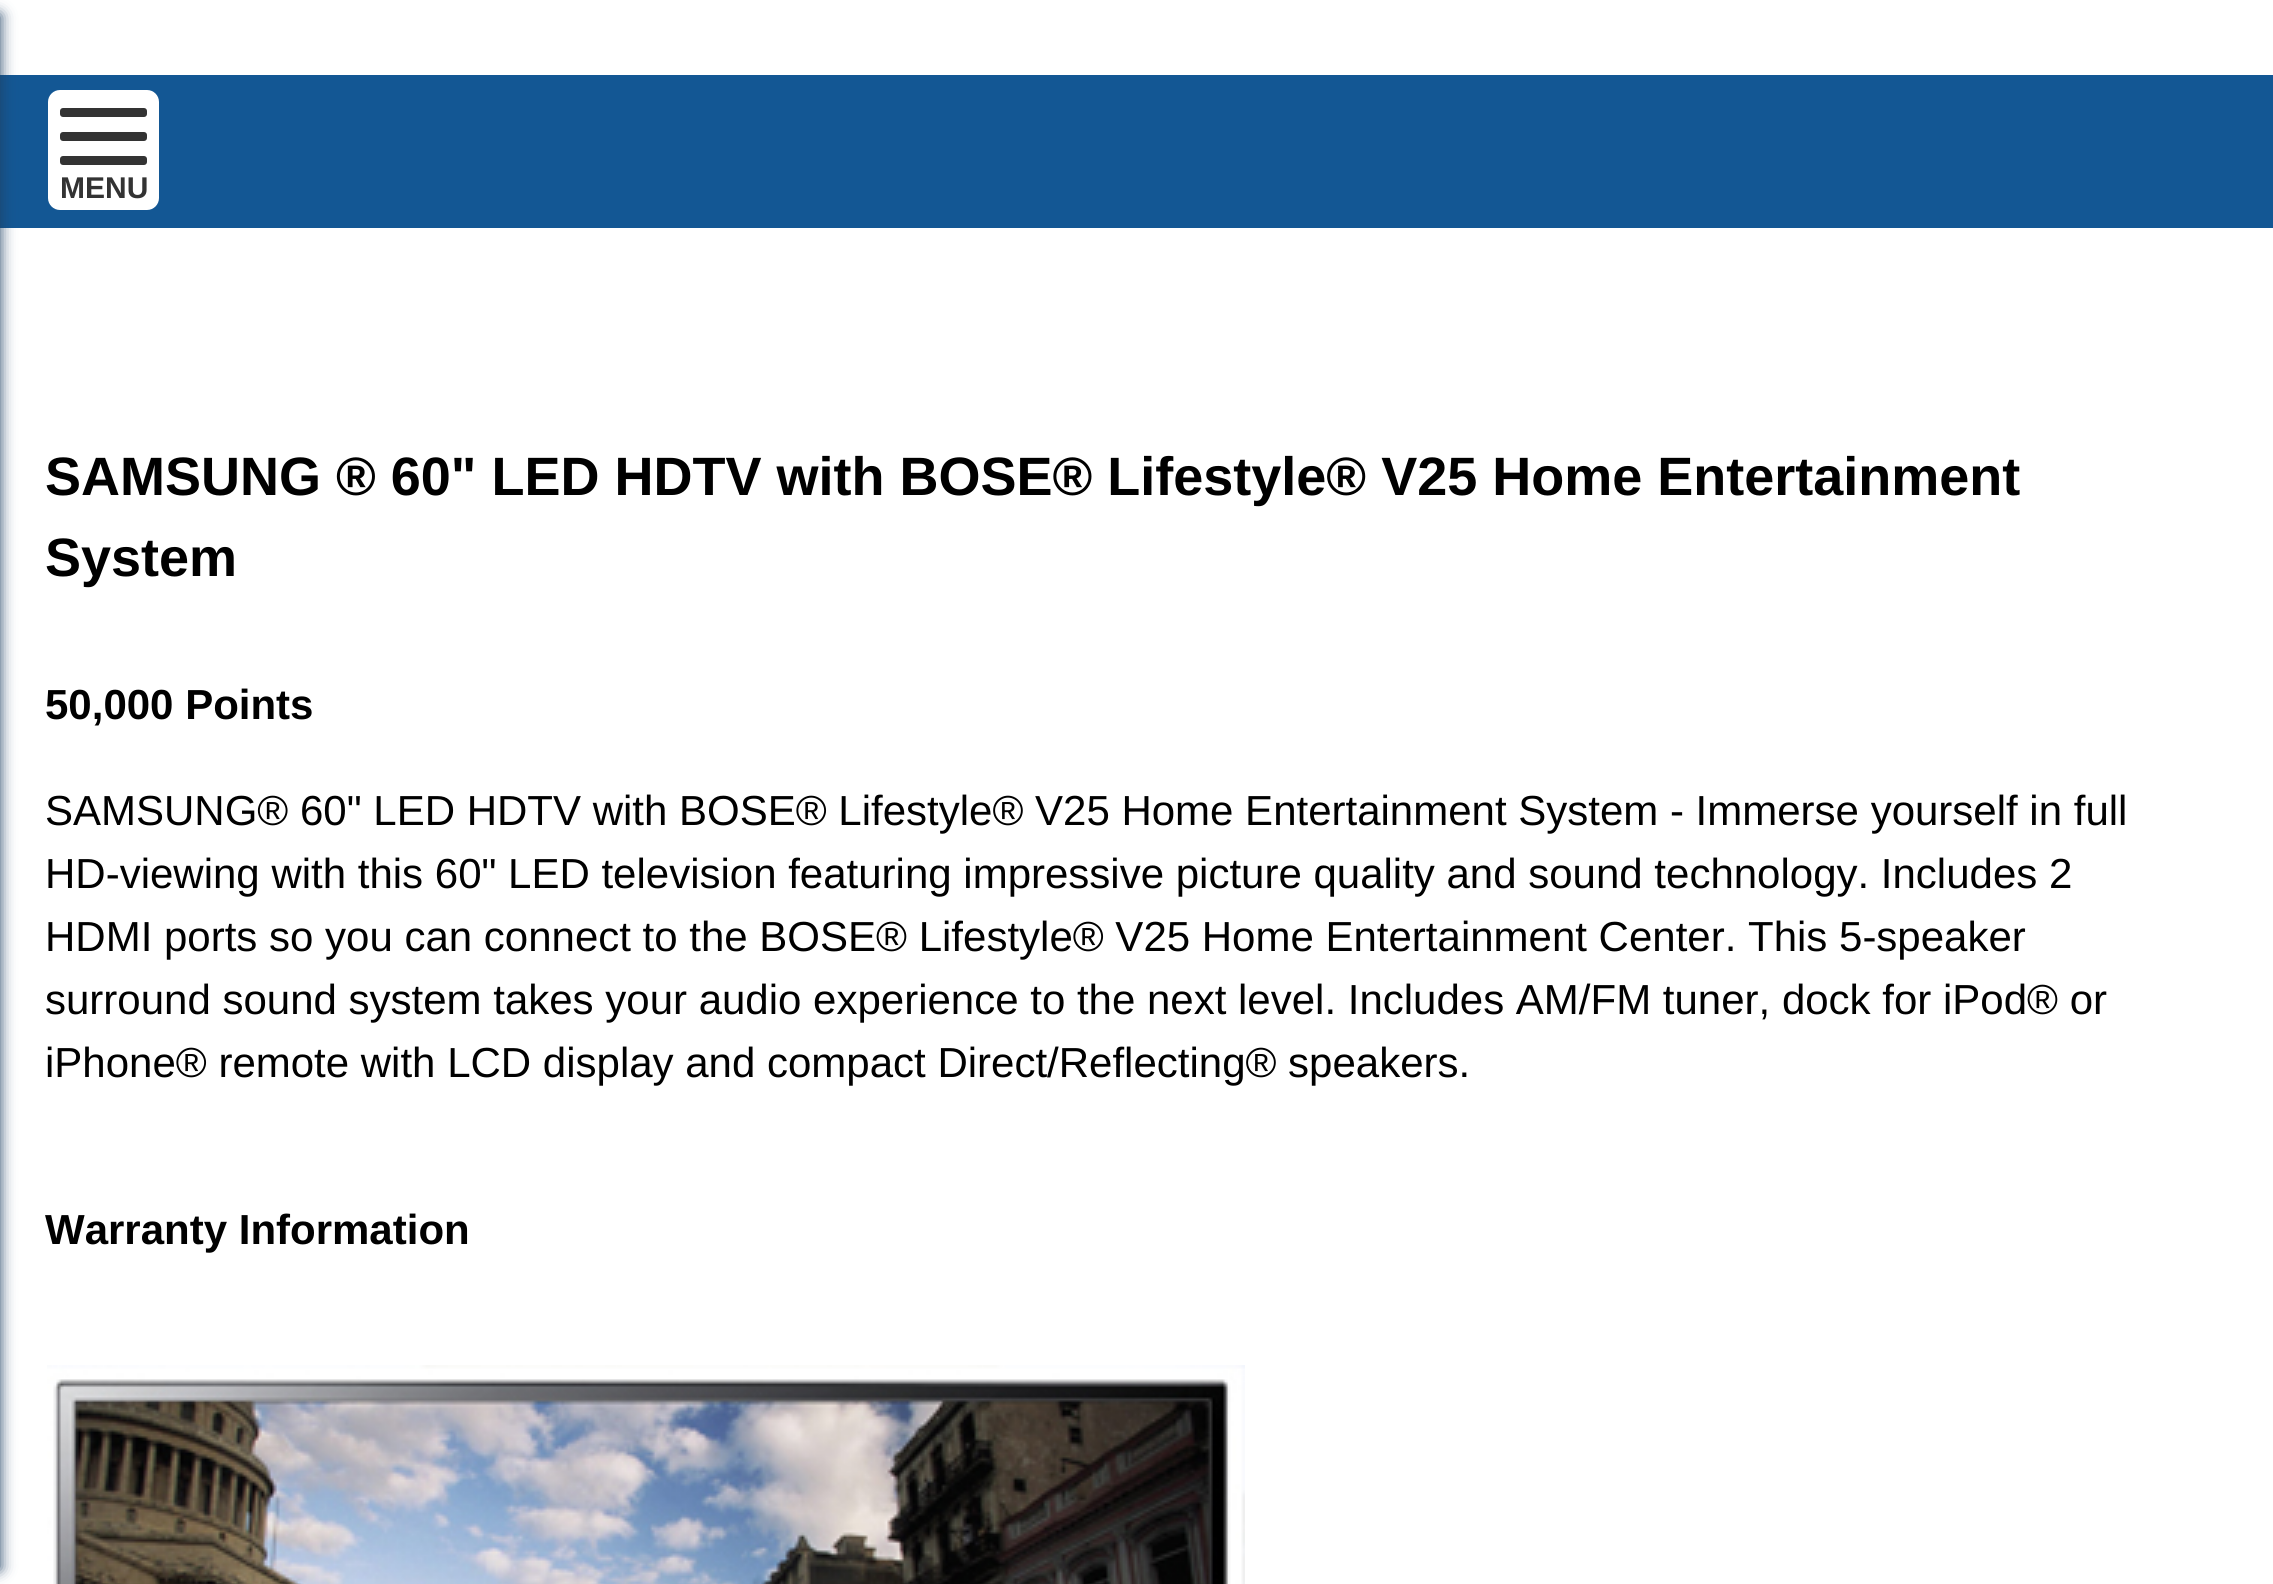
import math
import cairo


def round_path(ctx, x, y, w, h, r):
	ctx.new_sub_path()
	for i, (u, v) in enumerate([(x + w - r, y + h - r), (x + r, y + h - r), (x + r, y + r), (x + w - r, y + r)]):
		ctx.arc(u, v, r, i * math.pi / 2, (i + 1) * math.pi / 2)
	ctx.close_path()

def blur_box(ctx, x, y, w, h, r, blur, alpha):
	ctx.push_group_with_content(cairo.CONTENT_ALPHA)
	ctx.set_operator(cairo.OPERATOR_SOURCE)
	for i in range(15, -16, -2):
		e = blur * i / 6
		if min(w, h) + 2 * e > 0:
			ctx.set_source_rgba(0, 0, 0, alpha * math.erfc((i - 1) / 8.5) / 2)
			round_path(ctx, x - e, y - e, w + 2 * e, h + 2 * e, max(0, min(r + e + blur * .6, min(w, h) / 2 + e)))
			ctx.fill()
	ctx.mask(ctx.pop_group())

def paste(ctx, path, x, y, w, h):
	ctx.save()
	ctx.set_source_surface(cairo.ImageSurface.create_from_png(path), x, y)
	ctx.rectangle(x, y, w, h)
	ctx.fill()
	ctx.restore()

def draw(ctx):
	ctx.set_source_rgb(1, 1, 1)
	ctx.paint()
	ctx.set_source_rgb(0.075, 0.341, 0.58)
	ctx.rectangle(0, 75, 2273, 153)
	ctx.fill()
	ctx.set_source_rgb(0.122, 0.255, 0.392)
	blur_box(ctx, -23, 15, 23, 1554, 0, 7.5, 1)
	ctx.set_source_rgb(1, 1, 1)
	round_path(ctx, 48, 90, 111, 120, 12)
	ctx.fill()
	ctx.set_source_rgb(0.2, 0.2, 0.2)
	round_path(ctx, 60, 108, 87, 9, 3)
	ctx.fill()
	round_path(ctx, 60, 132, 87, 9, 3)
	ctx.fill()
	round_path(ctx, 60, 156, 87, 9, 3)
	ctx.fill()
	ctx.select_font_face('Liberation Sans', cairo.FONT_SLANT_NORMAL, cairo.FONT_WEIGHT_BOLD)
	ctx.set_font_size(30)
	ctx.move_to(60, 198)
	ctx.show_text('MENU')
	ctx.set_font_size(54)
	ctx.set_source_rgb(0, 0, 0)
	ctx.move_to(45, 495)
	ctx.show_text('SAMSUNG ® 60" LED HDTV with BOSE® Lifestyle® V25 Home Entertainment')
	ctx.move_to(45, 576)
	ctx.show_text('System')
	ctx.set_font_size(42)
	ctx.move_to(45, 719)
	ctx.show_text('50,000 Points')
	ctx.select_font_face('Liberation Sans')
	for x, y, s in [
		(45, 825, 'SAMSUNG® 60" LED HDTV with BOSE® Lifestyle® V25 Home Entertainment System - Immerse yourself in full'),
		(45, 888, 'HD-viewing with this 60" LED television featuring impressive picture quality and sound technology. Includes 2'),
		(45, 951, 'HDMI ports so you can connect to the BOSE® Lifestyle® V25 Home Entertainment Center. This 5-speaker'),
		(45, 1014, 'surround sound system takes your audio experience to the next level. Includes AM/FM tuner, dock for iPod® or'),
		(45, 1077, 'iPhone® remote with LCD display and compact Direct/Reflecting® speakers.'),
	]:
		ctx.move_to(x, y)
		ctx.show_text(s)
	ctx.select_font_face('Liberation Sans', cairo.FONT_SLANT_NORMAL, cairo.FONT_WEIGHT_BOLD)
	ctx.move_to(45, 1244)
	ctx.show_text('Warranty Information')
	paste(ctx, 'media/1.png', 47, 1365, 1198, 219)


surface = cairo.ImageSurface(cairo.FORMAT_RGB24, 2273, 1584)
ctx = cairo.Context(surface)
options = cairo.FontOptions()
options.set_hint_metrics(cairo.HINT_METRICS_OFF)
options.set_hint_style(cairo.HINT_STYLE_NONE)
ctx.set_font_options(options)
ctx.set_miter_limit(4)
draw(ctx)
surface.write_to_png('image.png')
